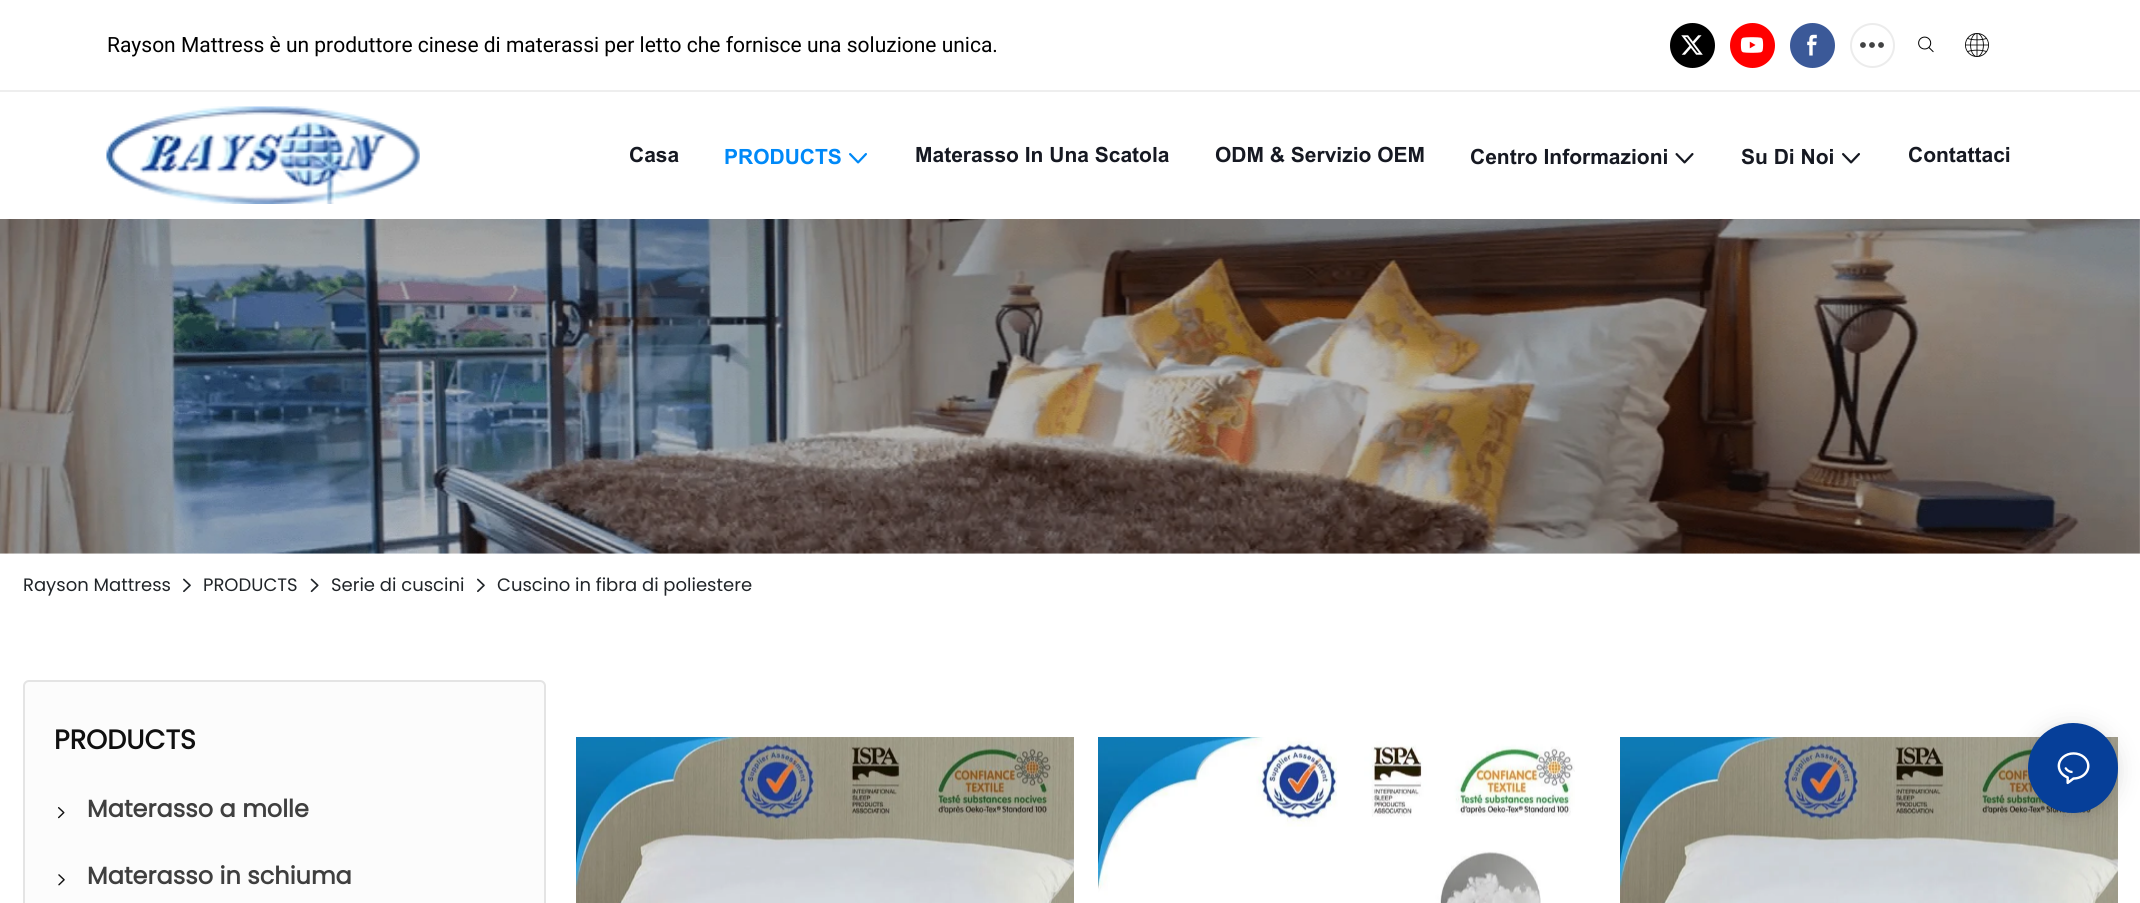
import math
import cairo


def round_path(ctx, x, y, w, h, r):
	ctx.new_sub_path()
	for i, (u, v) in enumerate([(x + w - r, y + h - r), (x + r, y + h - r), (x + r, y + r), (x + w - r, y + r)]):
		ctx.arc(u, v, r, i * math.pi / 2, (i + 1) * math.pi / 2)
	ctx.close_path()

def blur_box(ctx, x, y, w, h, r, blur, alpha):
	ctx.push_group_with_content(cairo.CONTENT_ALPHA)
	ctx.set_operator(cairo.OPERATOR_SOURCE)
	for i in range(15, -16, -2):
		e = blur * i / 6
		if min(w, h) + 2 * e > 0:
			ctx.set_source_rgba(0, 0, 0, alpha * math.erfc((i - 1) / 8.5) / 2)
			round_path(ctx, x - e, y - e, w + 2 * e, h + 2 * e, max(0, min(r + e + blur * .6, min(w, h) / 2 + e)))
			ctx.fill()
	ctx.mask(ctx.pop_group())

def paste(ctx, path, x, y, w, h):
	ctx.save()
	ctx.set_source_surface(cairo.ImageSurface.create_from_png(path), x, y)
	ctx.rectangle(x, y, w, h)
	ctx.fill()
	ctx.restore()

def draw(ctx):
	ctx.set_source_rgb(1, 1, 1)
	ctx.paint()
	ctx.set_source_rgb(0.933, 0.933, 0.933)
	ctx.rectangle(0, 90, 2140, 2)
	ctx.fill()
	ctx.select_font_face('Roboto')
	ctx.set_font_size(21)
	ctx.set_source_rgb(0, 0, 0)
	ctx.move_to(107, 52)
	ctx.show_text('Rayson Mattress è un produttore cinese di materassi per letto che fornisce una soluzione unica.')
	ctx.new_path()
	ctx.arc(1692.5, 45.5, 22.5, 0, 2 * math.pi)
	ctx.fill()
	paste(ctx, 'media/1.png', 1681, 35, 22, 20)
	ctx.set_source_rgb(1, 0, 0)
	ctx.arc(1752.5, 45.5, 22.5, 0, 2 * math.pi)
	ctx.fill()
	paste(ctx, 'media/2.png', 1740, 37, 24, 16)
	ctx.set_source_rgb(0.231, 0.349, 0.596)
	ctx.arc(1812.5, 45.5, 22.5, 0, 2 * math.pi)
	ctx.fill()
	paste(ctx, 'media/3.png', 1807, 34, 10, 22)
	ctx.arc(1872.5, 45.5, 21.5, 0, 2 * math.pi)
	ctx.set_source_rgb(0.922, 0.922, 0.922)
	ctx.stroke()
	paste(ctx, 'media/4.png', 1860, 42, 24, 6)
	paste(ctx, 'media/5.png', 1918, 36, 16, 17)
	paste(ctx, 'media/6.png', 1965, 33, 24, 24)
	paste(ctx, 'media/7.png', 106, 106, 314, 98)
	ctx.select_font_face('Arial', cairo.FONT_SLANT_NORMAL, cairo.FONT_WEIGHT_BOLD)
	ctx.set_source_rgb(0.086, 0.098, 0.133)
	ctx.move_to(629, 162)
	ctx.show_text('Casa')
	ctx.set_source_rgb(0, 0.537, 0.969)
	ctx.move_to(724, 164)
	ctx.show_text('PRODUCTS')
	paste(ctx, 'media/8.png', 849, 153, 18, 11)
	ctx.set_source_rgb(0.086, 0.098, 0.133)
	for x, y, s in [
		(915, 162, 'Materasso In Una Scatola'),
		(1215, 162, 'ODM & Servizio OEM'),
		(1470, 164, 'Centro Informazioni'),
	]:
		ctx.move_to(x, y)
		ctx.show_text(s)
	paste(ctx, 'media/9.png', 1675, 153, 19, 11)
	ctx.move_to(1741, 164)
	ctx.show_text('Su Di Noi')
	paste(ctx, 'media/10.png', 1842, 153, 18, 11)
	ctx.move_to(1908, 162)
	ctx.show_text('Contattaci')
	paste(ctx, 'media/11.png', 0, 219, 2140, 335)
	ctx.select_font_face('Poppins')
	ctx.set_font_size(18)
	ctx.set_source_rgb(0.129, 0.145, 0.161)
	ctx.move_to(23, 591)
	ctx.show_text('Rayson Mattress')
	paste(ctx, 'media/12.png', 183, 578, 8, 15)
	ctx.move_to(203, 591)
	ctx.show_text('PRODUCTS')
	paste(ctx, 'media/13.png', 310, 578, 9, 15)
	ctx.move_to(331, 591)
	ctx.show_text('Serie di cuscini')
	paste(ctx, 'media/14.png', 477, 578, 8, 15)
	ctx.move_to(497, 591)
	ctx.show_text('Cuscino in fibra di poliestere')
	ctx.set_source_rgb(0.988, 0.988, 0.988)
	round_path(ctx, 24, 681, 521, 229, 5)
	ctx.fill_preserve()
	ctx.set_source_rgb(0.894, 0.894, 0.894)
	ctx.stroke()
	ctx.select_font_face('Poppins', cairo.FONT_SLANT_NORMAL, cairo.FONT_WEIGHT_BOLD)
	ctx.set_font_size(27)
	ctx.set_source_rgb(0.063, 0.063, 0.063)
	ctx.move_to(54, 749)
	ctx.show_text('PRODUCTS')
	paste(ctx, 'media/15.png', 58, 807, 7, 12)
	ctx.set_font_size(24)
	ctx.set_source_rgb(0.247, 0.247, 0.247)
	ctx.move_to(87, 817)
	ctx.show_text('Materasso a molle')
	paste(ctx, 'media/16.png', 58, 874, 7, 12)
	ctx.move_to(87, 884)
	ctx.show_text('Materasso in schiuma')
	paste(ctx, 'media/17.png', 576, 737, 498, 166)
	paste(ctx, 'media/18.png', 1098, 737, 477, 166)
	paste(ctx, 'media/19.png', 1620, 737, 498, 166)
	ctx.set_source_rgb(0, 0, 0)
	blur_box(ctx, 2028, 726, 90, 90, 45, 12, 0.12)
	blur_box(ctx, 2028, 725, 90, 90, 45, 3, 0.06)
	ctx.set_source_rgb(0.024, 0.247, 0.6)
	ctx.arc(2073, 768, 45, 0, 2 * math.pi)
	ctx.fill()
	paste(ctx, 'media/20.png', 2057, 752, 33, 33)


surface = cairo.ImageSurface(cairo.FORMAT_RGB24, 2140, 903)
ctx = cairo.Context(surface)
options = cairo.FontOptions()
options.set_hint_metrics(cairo.HINT_METRICS_OFF)
options.set_hint_style(cairo.HINT_STYLE_NONE)
ctx.set_font_options(options)
ctx.set_miter_limit(4)
draw(ctx)
surface.write_to_png('image.png')
